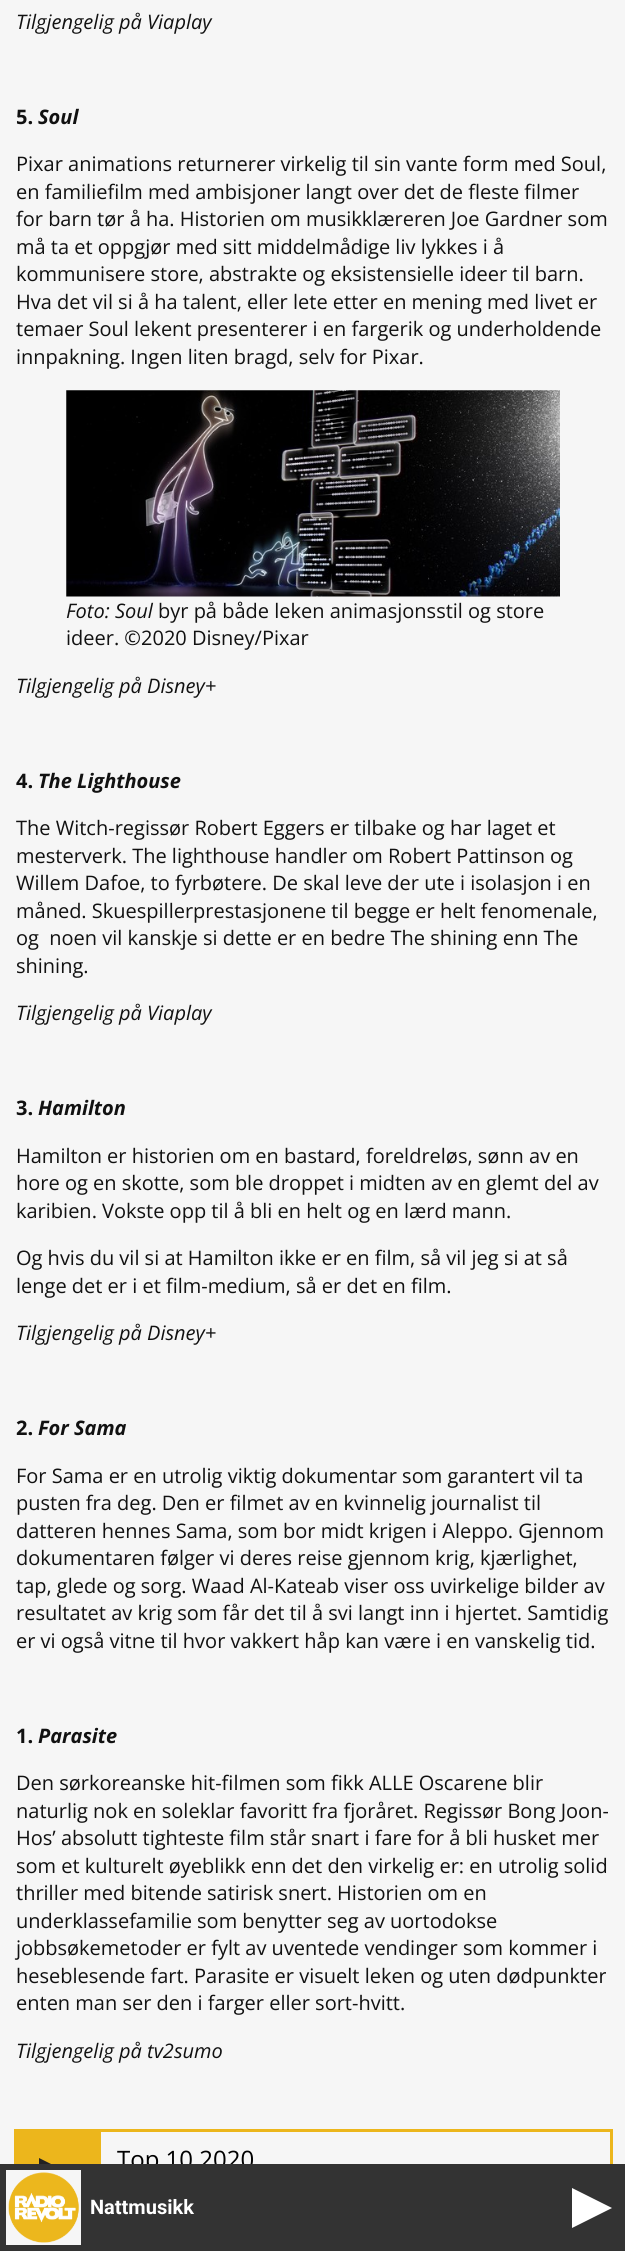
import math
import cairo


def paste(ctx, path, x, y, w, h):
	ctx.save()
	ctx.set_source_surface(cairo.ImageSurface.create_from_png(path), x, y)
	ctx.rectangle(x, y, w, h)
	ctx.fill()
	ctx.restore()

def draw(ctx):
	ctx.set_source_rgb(0.961, 0.961, 0.961)
	ctx.paint()
	ctx.select_font_face('Open Sans', cairo.FONT_SLANT_ITALIC)
	ctx.set_font_size(20)
	ctx.set_source_rgb(0.067, 0.067, 0.067)
	ctx.move_to(16, 29)
	ctx.show_text('Tilgjengelig på Viaplay')
	ctx.select_font_face('Open Sans', cairo.FONT_SLANT_NORMAL, cairo.FONT_WEIGHT_BOLD)
	ctx.move_to(16, 124)
	ctx.show_text('5.')
	ctx.select_font_face('Open Sans', cairo.FONT_SLANT_ITALIC, cairo.FONT_WEIGHT_BOLD)
	ctx.move_to(38, 124)
	ctx.show_text('Soul')
	ctx.select_font_face('Open Sans')
	for x, y, s in [
		(16, 171, 'Pixar animations returnerer virkelig til sin vante form med Soul,'),
		(16, 199, 'en familiefilm med ambisjoner langt over det de fleste filmer'),
		(16, 226, 'for barn tør å ha. Historien om musikklæreren Joe Gardner som'),
		(16, 254, 'må ta et oppgjør med sitt middelmådige liv lykkes i å'),
		(16, 281, 'kommunisere store, abstrakte og eksistensielle ideer til barn.'),
		(16, 309, 'Hva det vil si å ha talent, eller lete etter en mening med livet er'),
		(16, 336, 'temaer Soul lekent presenterer i en fargerik og underholdende'),
		(16, 364, 'innpakning. Ingen liten bragd, selv for Pixar.'),
	]:
		ctx.move_to(x, y)
		ctx.show_text(s)
	paste(ctx, 'media/1.png', 66, 390, 494, 207)
	ctx.select_font_face('Open Sans', cairo.FONT_SLANT_ITALIC)
	ctx.move_to(66, 618)
	ctx.show_text('Foto: Soul')
	ctx.select_font_face('Open Sans')
	ctx.move_to(158, 618)
	ctx.show_text('byr på både leken animasjonsstil og store')
	ctx.move_to(66, 645)
	ctx.show_text('ideer. ©2020 Disney/Pixar')
	ctx.select_font_face('Open Sans', cairo.FONT_SLANT_ITALIC)
	ctx.move_to(16, 693)
	ctx.show_text('Tilgjengelig på Disney+')
	ctx.select_font_face('Open Sans', cairo.FONT_SLANT_NORMAL, cairo.FONT_WEIGHT_BOLD)
	ctx.move_to(16, 788)
	ctx.show_text('4.')
	ctx.select_font_face('Open Sans', cairo.FONT_SLANT_ITALIC, cairo.FONT_WEIGHT_BOLD)
	ctx.move_to(38, 788)
	ctx.show_text('The Lighthouse')
	ctx.select_font_face('Open Sans')
	for x, y, s in [
		(16, 835, 'The Witch-regissør Robert Eggers er tilbake og har laget et'),
		(16, 863, 'mesterverk. The lighthouse handler om Robert Pattinson og'),
		(16, 890, 'Willem Dafoe, to fyrbøtere. De skal leve der ute i isolasjon i en'),
		(16, 918, 'måned. Skuespillerprestasjonene til begge er helt fenomenale,'),
		(16, 945, 'og  noen vil kanskje si dette er en bedre The shining enn The'),
		(16, 973, 'shining.'),
	]:
		ctx.move_to(x, y)
		ctx.show_text(s)
	ctx.select_font_face('Open Sans', cairo.FONT_SLANT_ITALIC)
	ctx.move_to(16, 1020)
	ctx.show_text('Tilgjengelig på Viaplay')
	ctx.select_font_face('Open Sans', cairo.FONT_SLANT_NORMAL, cairo.FONT_WEIGHT_BOLD)
	ctx.move_to(16, 1115)
	ctx.show_text('3.')
	ctx.select_font_face('Open Sans', cairo.FONT_SLANT_ITALIC, cairo.FONT_WEIGHT_BOLD)
	ctx.move_to(38, 1115)
	ctx.show_text('Hamilton')
	ctx.select_font_face('Open Sans')
	for x, y, s in [
		(16, 1163, 'Hamilton er historien om en bastard, foreldreløs, sønn av en'),
		(16, 1190, 'hore og en skotte, som ble droppet i midten av en glemt del av'),
		(16, 1218, 'karibien. Vokste opp til å bli en helt og en lærd mann.'),
		(16, 1265, 'Og hvis du vil si at Hamilton ikke er en film, så vil jeg si at så'),
		(16, 1293, 'lenge det er i et film-medium, så er det en film.'),
	]:
		ctx.move_to(x, y)
		ctx.show_text(s)
	ctx.select_font_face('Open Sans', cairo.FONT_SLANT_ITALIC)
	ctx.move_to(16, 1340)
	ctx.show_text('Tilgjengelig på Disney+')
	ctx.select_font_face('Open Sans', cairo.FONT_SLANT_NORMAL, cairo.FONT_WEIGHT_BOLD)
	ctx.move_to(16, 1435)
	ctx.show_text('2.')
	ctx.select_font_face('Open Sans', cairo.FONT_SLANT_ITALIC, cairo.FONT_WEIGHT_BOLD)
	ctx.move_to(38, 1435)
	ctx.show_text('For Sama')
	ctx.select_font_face('Open Sans')
	for x, y, s in [
		(16, 1483, 'For Sama er en utrolig viktig dokumentar som garantert vil ta'),
		(16, 1510, 'pusten fra deg. Den er filmet av en kvinnelig journalist til'),
		(16, 1538, 'datteren hennes Sama, som bor midt krigen i Aleppo. Gjennom'),
		(16, 1565, 'dokumentaren følger vi deres reise gjennom krig, kjærlighet,'),
		(16, 1593, 'tap, glede og sorg. Waad Al-Kateab viser oss uvirkelige bilder av'),
		(16, 1620, 'resultatet av krig som får det til å svi langt inn i hjertet. Samtidig'),
		(16, 1648, 'er vi også vitne til hvor vakkert håp kan være i en vanskelig tid.'),
	]:
		ctx.move_to(x, y)
		ctx.show_text(s)
	ctx.select_font_face('Open Sans', cairo.FONT_SLANT_NORMAL, cairo.FONT_WEIGHT_BOLD)
	ctx.move_to(16, 1743)
	ctx.show_text('1.')
	ctx.select_font_face('Open Sans', cairo.FONT_SLANT_ITALIC, cairo.FONT_WEIGHT_BOLD)
	ctx.move_to(38, 1743)
	ctx.show_text('Parasite')
	ctx.select_font_face('Open Sans')
	for x, y, s in [
		(16, 1790, 'Den sørkoreanske hit-filmen som fikk ALLE Oscarene blir'),
		(16, 1818, 'naturlig nok en soleklar favoritt fra fjoråret. Regissør Bong Joon-'),
		(16, 1845, 'Hos’ absolutt tighteste film står snart i fare for å bli husket mer'),
		(16, 1873, 'som et kulturelt øyeblikk enn det den virkelig er: en utrolig solid'),
		(16, 1900, 'thriller med bitende satirisk snert. Historien om en'),
		(16, 1928, 'underklassefamilie som benytter seg av uortodokse'),
		(16, 1955, 'jobbsøkemetoder er fylt av uventede vendinger som kommer i'),
		(16, 1983, 'heseblesende fart. Parasite er visuelt leken og uten dødpunkter'),
		(16, 2010, 'enten man ser den i farger eller sort-hvitt.'),
	]:
		ctx.move_to(x, y)
		ctx.show_text(s)
	ctx.select_font_face('Open Sans', cairo.FONT_SLANT_ITALIC)
	ctx.move_to(16, 2058)
	ctx.show_text('Tilgjengelig på tv2sumo')
	ctx.set_source_rgb(0.925, 0.714, 0.11)
	ctx.rectangle(17, 2132, 84, 32)
	ctx.fill()
	ctx.rectangle(15.5, 2130.5, 596, 93)
	ctx.set_line_width(3)
	ctx.stroke()
	ctx.set_source_rgb(0.133, 0.133, 0.133)
	ctx.new_path()
	ctx.move_to(39, 2198)
	ctx.line_to(39, 2158)
	ctx.line_to(79, 2178)
	ctx.close_path()
	ctx.fill()
	ctx.select_font_face('Open Sans')
	ctx.set_font_size(24)
	ctx.set_source_rgb(0, 0, 0)
	ctx.move_to(117, 2168)
	ctx.show_text('Top 10 2020')
	ctx.set_source_rgb(0.2, 0.2, 0.2)
	ctx.rectangle(0, 2164, 625, 87)
	ctx.fill()
	ctx.set_source_rgb(0.961, 0.961, 0.961)
	ctx.rectangle(6, 2170, 75, 75)
	ctx.fill()
	paste(ctx, 'media/2.png', 8, 2172, 71, 71)
	ctx.select_font_face('Roboto', cairo.FONT_SLANT_NORMAL, cairo.FONT_WEIGHT_BOLD)
	ctx.set_font_size(20)
	ctx.set_source_rgb(1, 1, 1)
	ctx.move_to(90, 2214)
	ctx.show_text('Nattmusikk')
	ctx.new_path()
	ctx.move_to(572, 2228)
	ctx.line_to(572, 2188)
	ctx.line_to(612, 2208)
	ctx.close_path()
	ctx.fill()


surface = cairo.ImageSurface(cairo.FORMAT_RGB24, 625, 2251)
ctx = cairo.Context(surface)
options = cairo.FontOptions()
options.set_hint_metrics(cairo.HINT_METRICS_OFF)
options.set_hint_style(cairo.HINT_STYLE_NONE)
ctx.set_font_options(options)
ctx.set_miter_limit(4)
draw(ctx)
surface.write_to_png('image.png')
